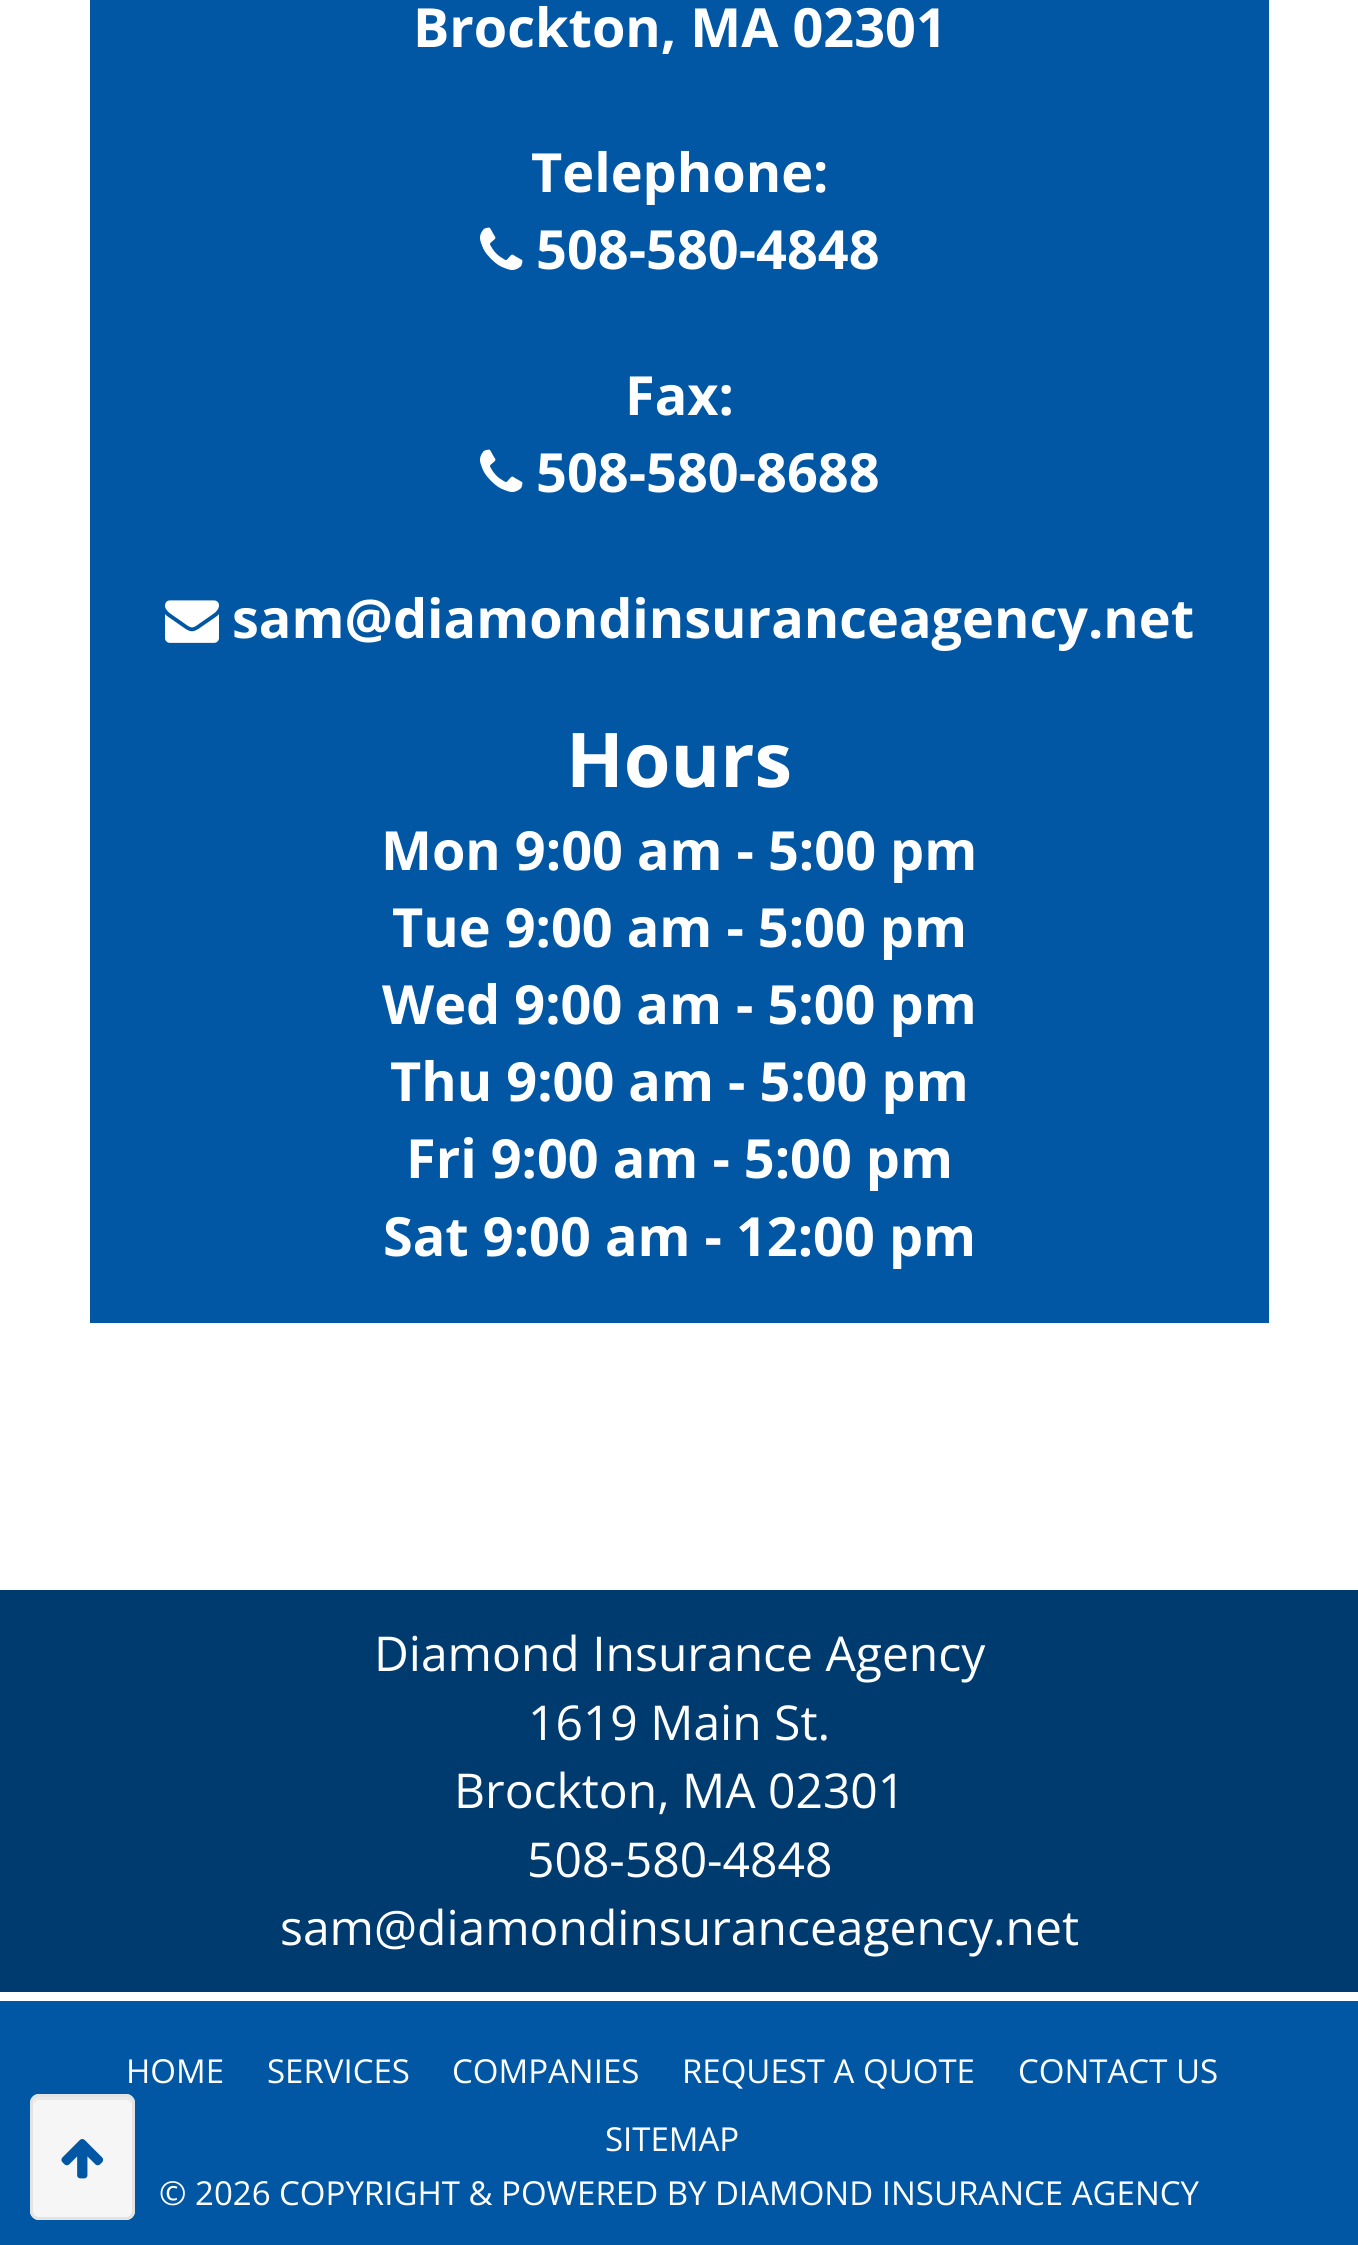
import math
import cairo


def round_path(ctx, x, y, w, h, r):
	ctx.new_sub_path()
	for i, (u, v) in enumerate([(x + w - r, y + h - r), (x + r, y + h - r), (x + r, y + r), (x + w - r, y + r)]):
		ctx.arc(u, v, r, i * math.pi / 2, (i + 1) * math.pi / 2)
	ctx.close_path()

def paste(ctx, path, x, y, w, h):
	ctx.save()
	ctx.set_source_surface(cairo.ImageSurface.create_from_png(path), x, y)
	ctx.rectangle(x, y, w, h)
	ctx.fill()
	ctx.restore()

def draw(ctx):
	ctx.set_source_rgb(1, 1, 1)
	ctx.paint()
	ctx.set_source_rgb(0.004, 0.341, 0.643)
	ctx.rectangle(90, 0, 1179, 1323)
	ctx.fill()
	ctx.select_font_face('Open Sans', cairo.FONT_SLANT_NORMAL, cairo.FONT_WEIGHT_BOLD)
	ctx.set_font_size(54)
	ctx.set_source_rgb(1, 1, 1)
	ctx.move_to(413, 47)
	ctx.show_text('Brockton, MA 02301')
	ctx.move_to(531, 192)
	ctx.show_text('Telephone:')
	paste(ctx, 'media/1.png', 480, 227, 43, 43)
	ctx.move_to(536, 269)
	ctx.show_text('508-580-4848')
	ctx.move_to(625, 415)
	ctx.show_text('Fax:')
	paste(ctx, 'media/1.png', 480, 449, 43, 43)
	ctx.move_to(536, 492)
	ctx.show_text('508-580-8688')
	paste(ctx, 'media/2.png', 165, 600, 54, 43)
	ctx.move_to(232, 638)
	ctx.show_text('sam@diamondinsuranceagency.net')
	ctx.set_font_size(75.5)
	ctx.move_to(566, 787)
	ctx.show_text('Hours')
	ctx.set_font_size(54)
	for x, y, s in [
		(381, 870, 'Mon 9:00 am - 5:00 pm'),
		(392, 947, 'Tue 9:00 am - 5:00 pm'),
		(382, 1024, 'Wed 9:00 am - 5:00 pm'),
		(390, 1101, 'Thu 9:00 am - 5:00 pm'),
		(406, 1178, 'Fri 9:00 am - 5:00 pm'),
		(383, 1256, 'Sat 9:00 am - 12:00 pm'),
	]:
		ctx.move_to(x, y)
		ctx.show_text(s)
	ctx.set_source_rgb(0, 0.231, 0.439)
	ctx.rectangle(0, 1590, 1358, 402)
	ctx.fill()
	ctx.select_font_face('Open Sans')
	ctx.set_font_size(48)
	ctx.set_source_rgb(1, 1, 1)
	for x, y, s in [
		(374, 1671, 'Diamond Insurance Agency'),
		(528, 1740, '1619 Main St.'),
		(454, 1808, 'Brockton, MA 02301'),
		(527, 1877, '508-580-4848'),
		(280, 1945, 'sam@diamondinsuranceagency.net'),
	]:
		ctx.move_to(x, y)
		ctx.show_text(s)
	ctx.set_source_rgb(0.004, 0.341, 0.643)
	ctx.rectangle(0, 2001, 1358, 244)
	ctx.fill()
	ctx.set_source_rgb(0.961, 0.961, 0.961)
	round_path(ctx, 30, 2094, 105, 126, 9)
	ctx.fill()
	ctx.set_source_rgb(0.914, 0.914, 0.914)
	ctx.new_path()
	ctx.move_to(39, 2100)
	ctx.line_to(126, 2100)
	ctx.curve_to(129, 2100, 132, 2103, 132, 2106)
	ctx.curve_to(132, 2093, 123, 2097, 112, 2097)
	ctx.line_to(54, 2097)
	ctx.curve_to(42, 2097, 33, 2093, 33, 2106)
	ctx.curve_to(33, 2103, 36, 2100, 39, 2100)
	ctx.close_path()
	ctx.fill()
	round_path(ctx, 31.5, 2095.5, 102, 123, 7.5)
	ctx.set_source_rgb(0.89, 0.89, 0.89)
	ctx.set_line_width(3)
	ctx.stroke()
	paste(ctx, 'media/3.png', 61, 2139, 43, 40)
	ctx.set_font_size(33)
	ctx.set_source_rgb(1, 1, 1)
	for x, y, s in [
		(126, 2083, 'HOME'),
		(267, 2083, 'SERVICES'),
		(452, 2083, 'COMPANIES'),
		(682, 2083, 'REQUEST A QUOTE'),
		(1018, 2083, 'CONTACT US'),
		(605, 2151, 'SITEMAP'),
		(159, 2205, '© 2026 COPYRIGHT & POWERED BY DIAMOND INSURANCE AGENCY'),
	]:
		ctx.move_to(x, y)
		ctx.show_text(s)


surface = cairo.ImageSurface(cairo.FORMAT_RGB24, 1358, 2245)
ctx = cairo.Context(surface)
options = cairo.FontOptions()
options.set_hint_metrics(cairo.HINT_METRICS_OFF)
options.set_hint_style(cairo.HINT_STYLE_NONE)
ctx.set_font_options(options)
ctx.set_miter_limit(4)
draw(ctx)
surface.write_to_png('image.png')
